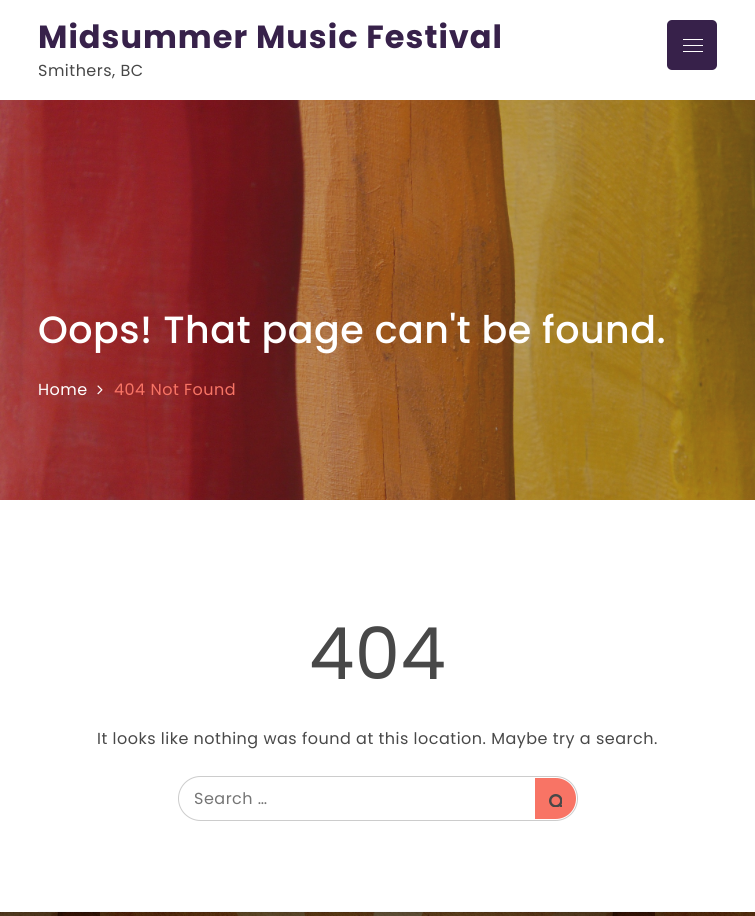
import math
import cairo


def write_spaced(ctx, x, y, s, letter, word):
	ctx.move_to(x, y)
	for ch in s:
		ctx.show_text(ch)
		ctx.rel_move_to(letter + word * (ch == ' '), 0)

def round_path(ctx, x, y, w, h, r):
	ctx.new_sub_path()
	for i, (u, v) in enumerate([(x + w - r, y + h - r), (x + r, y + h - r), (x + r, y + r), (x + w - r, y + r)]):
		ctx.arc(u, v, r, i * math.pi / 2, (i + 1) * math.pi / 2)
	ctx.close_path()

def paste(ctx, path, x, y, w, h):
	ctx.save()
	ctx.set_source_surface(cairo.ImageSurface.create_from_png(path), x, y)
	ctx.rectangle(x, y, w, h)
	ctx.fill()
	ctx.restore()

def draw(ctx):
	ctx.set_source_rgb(1, 1, 1)
	ctx.paint()
	ctx.select_font_face('Poppins', cairo.FONT_SLANT_NORMAL, cairo.FONT_WEIGHT_BOLD)
	ctx.set_font_size(32)
	ctx.set_source_rgb(0.216, 0.129, 0.29)
	write_spaced(ctx, 38, 48, 'Midsummer Music Festival', 1, 0)
	ctx.select_font_face('Poppins')
	ctx.set_font_size(16)
	ctx.set_source_rgb(0.282, 0.282, 0.282)
	write_spaced(ctx, 38, 76, 'Smithers, BC', 0.5, 0)
	ctx.set_source_rgb(0.216, 0.129, 0.29)
	round_path(ctx, 667, 20, 50, 50, 5)
	ctx.fill()
	ctx.set_source_rgb(1, 1, 1)
	ctx.rectangle(683, 39, 20, 1)
	ctx.rectangle(683, 45, 20, 1)
	ctx.rectangle(683, 51, 20, 1)
	ctx.fill()
	paste(ctx, 'media/1.png', 0, 100, 755, 400)
	ctx.select_font_face('Poppins Medium')
	ctx.set_font_size(38)
	write_spaced(ctx, 38, 343, 'Oops! That page can\'t be found.', 0.5, 0)
	ctx.select_font_face('Poppins')
	ctx.set_font_size(16)
	write_spaced(ctx, 38, 395, 'Home', 0.5, 0)
	paste(ctx, 'media/2.png', 97, 385, 6, 10)
	ctx.set_source_rgb(0.969, 0.455, 0.396)
	write_spaced(ctx, 114, 395, '404 Not Found', 0.5, 0)
	ctx.set_source_rgb(0.965, 0.969, 0.984)
	ctx.rectangle(38, 911, 679, 1)
	ctx.fill()
	ctx.set_font_size(72)
	ctx.set_source_rgb(0.282, 0.282, 0.282)
	write_spaced(ctx, 309, 679, '404', 0.5, 0)
	ctx.set_font_size(16)
	write_spaced(ctx, 97, 744, 'It looks like nothing was found at this location. Maybe try a search.', 0.5, 0)
	round_path(ctx, 178.5, 776.5, 399, 44, 22)
	ctx.set_source_rgb(0.8, 0.8, 0.8)
	ctx.set_line_width(1)
	ctx.stroke()
	ctx.set_source_rgb(0.459, 0.459, 0.459)
	write_spaced(ctx, 194, 804, 'Search …', 0.5, 0)
	ctx.set_source_rgb(0.969, 0.455, 0.396)
	ctx.new_path()
	ctx.move_to(535, 778)
	ctx.line_to(555.5, 778)
	ctx.curve_to(567, 778, 576, 787, 576, 798.5)
	ctx.curve_to(576, 810, 567, 819, 555.5, 819)
	ctx.line_to(535, 819)
	ctx.close_path()
	ctx.fill()
	paste(ctx, 'media/3.png', 549, 794, 13, 13)
	paste(ctx, 'media/4.png', 0, 912, 755, 4)


surface = cairo.ImageSurface(cairo.FORMAT_RGB24, 755, 916)
ctx = cairo.Context(surface)
options = cairo.FontOptions()
options.set_hint_metrics(cairo.HINT_METRICS_OFF)
options.set_hint_style(cairo.HINT_STYLE_NONE)
ctx.set_font_options(options)
ctx.set_miter_limit(4)
draw(ctx)
surface.write_to_png('image.png')
